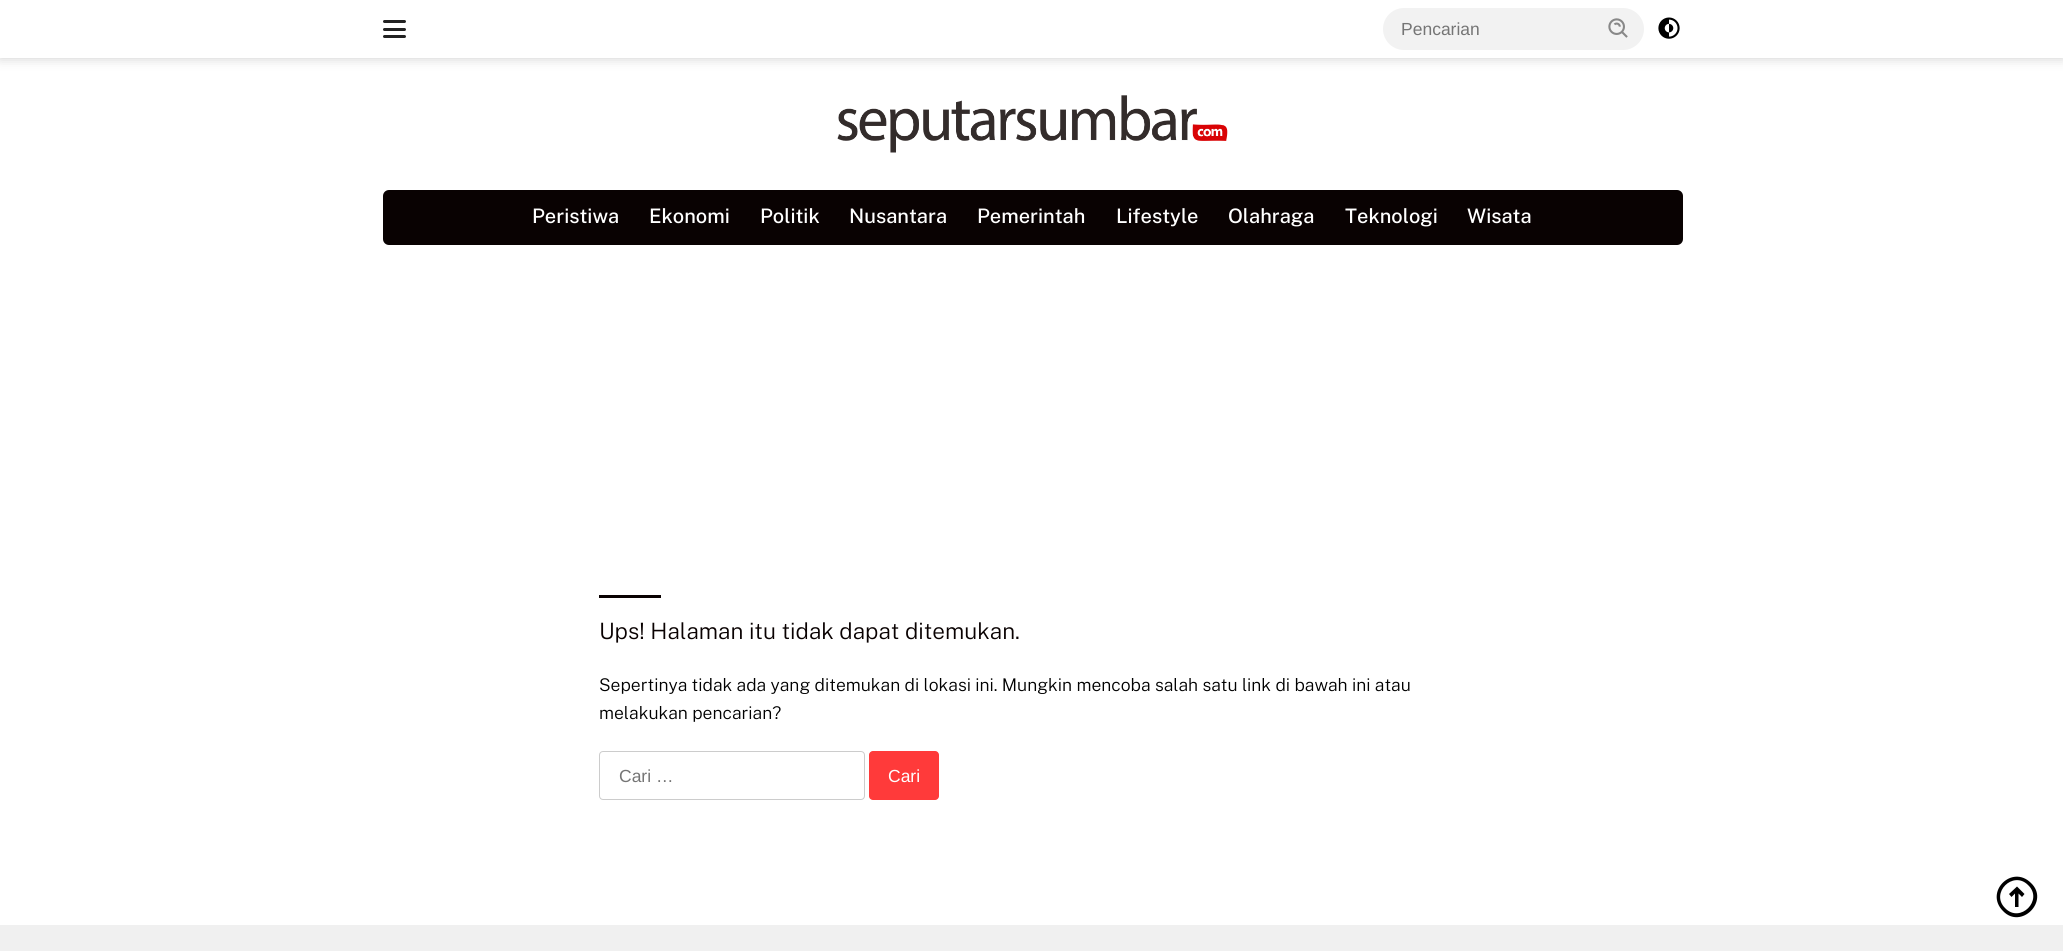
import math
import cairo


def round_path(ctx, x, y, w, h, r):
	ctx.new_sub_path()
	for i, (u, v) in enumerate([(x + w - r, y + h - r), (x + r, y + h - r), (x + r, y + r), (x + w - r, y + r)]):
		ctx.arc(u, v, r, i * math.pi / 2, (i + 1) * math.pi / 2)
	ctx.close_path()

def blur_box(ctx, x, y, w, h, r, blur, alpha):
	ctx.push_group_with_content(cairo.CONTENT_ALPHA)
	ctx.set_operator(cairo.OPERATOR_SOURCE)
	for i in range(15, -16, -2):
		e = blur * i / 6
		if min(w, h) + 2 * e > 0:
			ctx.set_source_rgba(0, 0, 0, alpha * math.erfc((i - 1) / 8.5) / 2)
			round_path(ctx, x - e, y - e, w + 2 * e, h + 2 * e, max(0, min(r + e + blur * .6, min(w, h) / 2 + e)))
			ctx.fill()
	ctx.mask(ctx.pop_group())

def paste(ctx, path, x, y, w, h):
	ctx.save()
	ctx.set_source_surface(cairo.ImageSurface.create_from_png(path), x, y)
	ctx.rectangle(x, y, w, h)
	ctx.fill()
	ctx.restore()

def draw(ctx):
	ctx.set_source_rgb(1, 1, 1)
	ctx.paint()
	ctx.set_source_rgb(0, 0, 0)
	blur_box(ctx, 0, 0, 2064, 58, 0, 6, 0.2)
	ctx.set_source_rgb(1, 1, 1)
	ctx.rectangle(0, 0, 2063, 58)
	ctx.fill()
	ctx.set_source_rgb(0.133, 0.133, 0.133)
	round_path(ctx, 383, 20, 23, 3, 1.5)
	ctx.fill()
	round_path(ctx, 383, 28, 23, 3, 1.5)
	ctx.fill()
	round_path(ctx, 383, 35, 23, 3, 1.5)
	ctx.fill()
	ctx.set_source_rgb(0.949, 0.949, 0.949)
	round_path(ctx, 1383, 8, 261, 42, 21)
	ctx.fill()
	ctx.select_font_face('Liberation Sans')
	ctx.set_font_size(17.5)
	ctx.set_source_rgb(0.459, 0.459, 0.459)
	ctx.move_to(1401, 35)
	ctx.show_text('Pencarian')
	paste(ctx, 'media/1.png', 1608, 18, 20, 20)
	paste(ctx, 'media/2.png', 1658, 17, 22, 22)
	paste(ctx, 'media/3.png', 837, 95, 391, 58)
	ctx.set_source_rgb(0.039, 0.008, 0.008)
	round_path(ctx, 383, 190, 1300, 55, 6)
	ctx.fill()
	ctx.select_font_face('Public Sans Medium')
	ctx.set_font_size(20)
	ctx.set_source_rgb(1, 1, 1)
	for x, y, s in [
		(532, 223, 'Peristiwa'),
		(649, 223, 'Ekonomi'),
		(760, 223, 'Politik'),
		(849, 223, 'Nusantara'),
		(977, 223, 'Pemerintah'),
		(1116, 223, 'Lifestyle'),
		(1228, 223, 'Olahraga'),
		(1345, 223, 'Teknologi'),
		(1467, 223, 'Wisata'),
	]:
		ctx.move_to(x, y)
		ctx.show_text(s)
	ctx.set_source_rgb(0.039, 0.004, 0.004)
	ctx.rectangle(599, 595, 62, 3)
	ctx.fill()
	ctx.select_font_face('Public Sans Light')
	ctx.set_font_size(22.5)
	ctx.move_to(599, 639)
	ctx.show_text('Ups! Halaman itu tidak dapat ditemukan.')
	ctx.set_font_size(17.5)
	ctx.set_source_rgb(0, 0, 0)
	ctx.move_to(599, 691)
	ctx.show_text('Sepertinya tidak ada yang ditemukan di lokasi ini. Mungkin mencoba salah satu link di bawah ini atau')
	ctx.move_to(599, 719)
	ctx.show_text('melakukan pencarian?')
	round_path(ctx, 599.5, 751.5, 265, 48, 3.5)
	ctx.set_source_rgb(0.8, 0.8, 0.8)
	ctx.set_line_width(1)
	ctx.stroke()
	ctx.select_font_face('Liberation Sans')
	ctx.set_source_rgb(0.459, 0.459, 0.459)
	ctx.move_to(619, 782)
	ctx.show_text('Cari …')
	ctx.set_source_rgb(1, 0.227, 0.227)
	round_path(ctx, 869, 751, 70, 49, 4)
	ctx.fill()
	ctx.set_source_rgb(1, 1, 1)
	ctx.move_to(888, 782)
	ctx.show_text('Cari')
	ctx.set_source_rgb(0.941, 0.941, 0.941)
	ctx.rectangle(0, 925, 2063, 26)
	ctx.fill()
	ctx.set_source_rgb(0, 0, 0)
	ctx.new_path()
	ctx.move_to(2022, 897)
	ctx.line_to(2024.5, 894)
	ctx.line_to(2017, 886.5)
	ctx.line_to(2009, 894)
	ctx.line_to(2011.5, 897)
	ctx.line_to(2015, 893.5)
	ctx.line_to(2015, 907)
	ctx.line_to(2018.5, 907)
	ctx.line_to(2018.5, 893.5)
	ctx.close_path()
	ctx.fill()
	ctx.set_fill_rule(cairo.FILL_RULE_EVEN_ODD)
	ctx.new_path()
	ctx.move_to(2031, 883)
	ctx.curve_to(2012, 864, 1984, 892, 2003, 911)
	ctx.curve_to(2021, 930, 2050, 901, 2031, 883)
	ctx.close_path()
	ctx.move_to(2028, 885)
	ctx.curve_to(2013, 870, 1990, 893, 2005, 908)
	ctx.curve_to(2020, 924, 2044, 900, 2028, 885)
	ctx.close_path()
	ctx.fill()


surface = cairo.ImageSurface(cairo.FORMAT_RGB24, 2063, 951)
ctx = cairo.Context(surface)
options = cairo.FontOptions()
options.set_hint_metrics(cairo.HINT_METRICS_OFF)
options.set_hint_style(cairo.HINT_STYLE_NONE)
ctx.set_font_options(options)
ctx.set_miter_limit(4)
draw(ctx)
surface.write_to_png('image.png')
